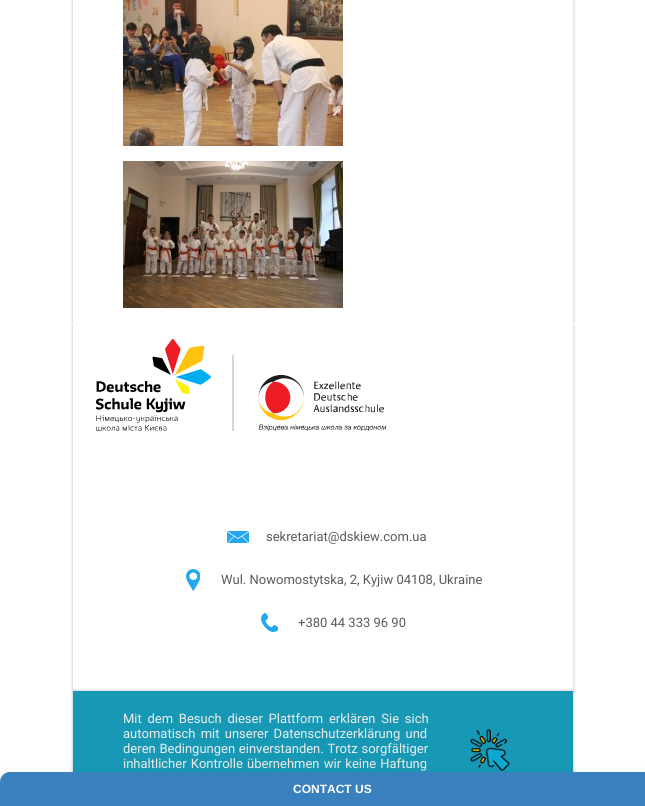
import math
import cairo


def write_spaced(ctx, x, y, s, letter, word):
	ctx.move_to(x, y)
	for ch in s:
		ctx.show_text(ch)
		ctx.rel_move_to(letter + word * (ch == ' '), 0)

def round_path(ctx, x, y, w, h, r):
	ctx.new_sub_path()
	for i, (u, v) in enumerate([(x + w - r, y + h - r), (x + r, y + h - r), (x + r, y + r), (x + w - r, y + r)]):
		ctx.arc(u, v, r, i * math.pi / 2, (i + 1) * math.pi / 2)
	ctx.close_path()

def blur_box(ctx, x, y, w, h, r, blur, alpha):
	ctx.push_group_with_content(cairo.CONTENT_ALPHA)
	ctx.set_operator(cairo.OPERATOR_SOURCE)
	for i in range(15, -16, -2):
		e = blur * i / 6
		if min(w, h) + 2 * e > 0:
			ctx.set_source_rgba(0, 0, 0, alpha * math.erfc((i - 1) / 8.5) / 2)
			round_path(ctx, x - e, y - e, w + 2 * e, h + 2 * e, max(0, min(r + e + blur * .6, min(w, h) / 2 + e)))
			ctx.fill()
	ctx.mask(ctx.pop_group())

def paste(ctx, path, x, y, w, h):
	ctx.save()
	ctx.set_source_surface(cairo.ImageSurface.create_from_png(path), x, y)
	ctx.rectangle(x, y, w, h)
	ctx.fill()
	ctx.restore()

def draw(ctx):
	ctx.set_source_rgb(1, 1, 1)
	ctx.paint()
	ctx.save()
	ctx.rectangle(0, 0, 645, 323)
	ctx.clip()
	ctx.set_fill_rule(cairo.FILL_RULE_EVEN_ODD)
	ctx.new_path()
	ctx.move_to(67, 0)
	ctx.line_to(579, 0)
	ctx.line_to(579, 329)
	ctx.line_to(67, 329)
	ctx.close_path()
	ctx.move_to(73, -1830)
	ctx.line_to(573, -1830)
	ctx.line_to(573, 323)
	ctx.line_to(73, 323)
	ctx.close_path()
	ctx.clip()
	ctx.set_source_rgb(0, 0, 0)
	blur_box(ctx, 73, -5, 500, 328, 0, 1.5, 0.3)
	ctx.restore()
	paste(ctx, 'media/1.png', 123, 0, 220, 146)
	paste(ctx, 'media/2.png', 123, 161, 220, 147)
	ctx.save()
	ctx.rectangle(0, 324, 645, 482)
	ctx.clip()
	ctx.set_fill_rule(cairo.FILL_RULE_EVEN_ODD)
	ctx.new_path()
	ctx.move_to(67, 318)
	ctx.line_to(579, 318)
	ctx.line_to(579, 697)
	ctx.line_to(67, 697)
	ctx.close_path()
	ctx.move_to(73, 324)
	ctx.line_to(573, 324)
	ctx.line_to(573, 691)
	ctx.line_to(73, 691)
	ctx.close_path()
	ctx.clip()
	ctx.set_source_rgb(0, 0, 0)
	blur_box(ctx, 73, 324, 500, 367, 0, 1.5, 0.3)
	ctx.restore()
	paste(ctx, 'media/3.png', 96, 339, 291, 92)
	paste(ctx, 'media/4.png', 227, 531, 22, 12)
	ctx.select_font_face('Roboto')
	ctx.set_font_size(13)
	ctx.set_source_rgb(0.353, 0.353, 0.353)
	ctx.move_to(266, 541)
	ctx.show_text('sekretariat@dskiew.com.ua')
	paste(ctx, 'media/5.png', 186, 569, 14, 22)
	ctx.move_to(221, 584)
	ctx.show_text('Wul. Nowomostytska, 2, Kyjiw 04108, Ukraine')
	paste(ctx, 'media/6.png', 261, 613, 17, 19)
	ctx.move_to(298, 627)
	ctx.show_text('+380 44 333 96 90')
	ctx.set_source_rgb(0, 0, 0)
	blur_box(ctx, 73, 691, 500, 115, 0, 1.5, 0.3)
	ctx.set_source_rgb(0.09, 0.6, 0.71)
	ctx.rectangle(73, 691, 500, 81)
	ctx.fill()
	ctx.set_source_rgb(0.929, 0.929, 0.929)
	write_spaced(ctx, 123, 723, 'Mit dem Besuch dieser Plattform erklären Sie sich', 0, 2.5)
	write_spaced(ctx, 123, 738, 'automatisch mit unserer Datenschutzerklärung und', 0, 2)
	write_spaced(ctx, 123, 753, 'deren Bedingungen einverstanden. Trotz sorgfältiger', 0, 0.5)
	write_spaced(ctx, 123, 768, 'inhaltlicher Kontrolle übernehmen wir keine Haftung', 0, 1)
	paste(ctx, 'media/7.png', 470, 729, 40, 42)
	ctx.set_source_rgb(0, 0, 0)
	blur_box(ctx, 0, 782, 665, 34, 10, 10, 0.19)
	ctx.set_source_rgb(0.224, 0.502, 0.749)
	ctx.new_path()
	ctx.move_to(10, 772)
	ctx.line_to(645, 772)
	ctx.curve_to(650.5, 772, 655, 776.5, 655, 782)
	ctx.line_to(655, 806)
	ctx.line_to(0, 806)
	ctx.line_to(0, 782)
	ctx.curve_to(0, 776.5, 4.5, 772, 10, 772)
	ctx.close_path()
	ctx.fill()
	ctx.select_font_face('Liberation Sans', cairo.FONT_SLANT_NORMAL, cairo.FONT_WEIGHT_BOLD)
	ctx.set_font_size(12)
	ctx.set_source_rgb(1, 1, 1)
	ctx.move_to(293, 793)
	ctx.show_text('CONTACT US')


surface = cairo.ImageSurface(cairo.FORMAT_RGB24, 645, 806)
ctx = cairo.Context(surface)
options = cairo.FontOptions()
options.set_hint_metrics(cairo.HINT_METRICS_OFF)
options.set_hint_style(cairo.HINT_STYLE_NONE)
ctx.set_font_options(options)
ctx.set_miter_limit(4)
draw(ctx)
surface.write_to_png('image.png')
